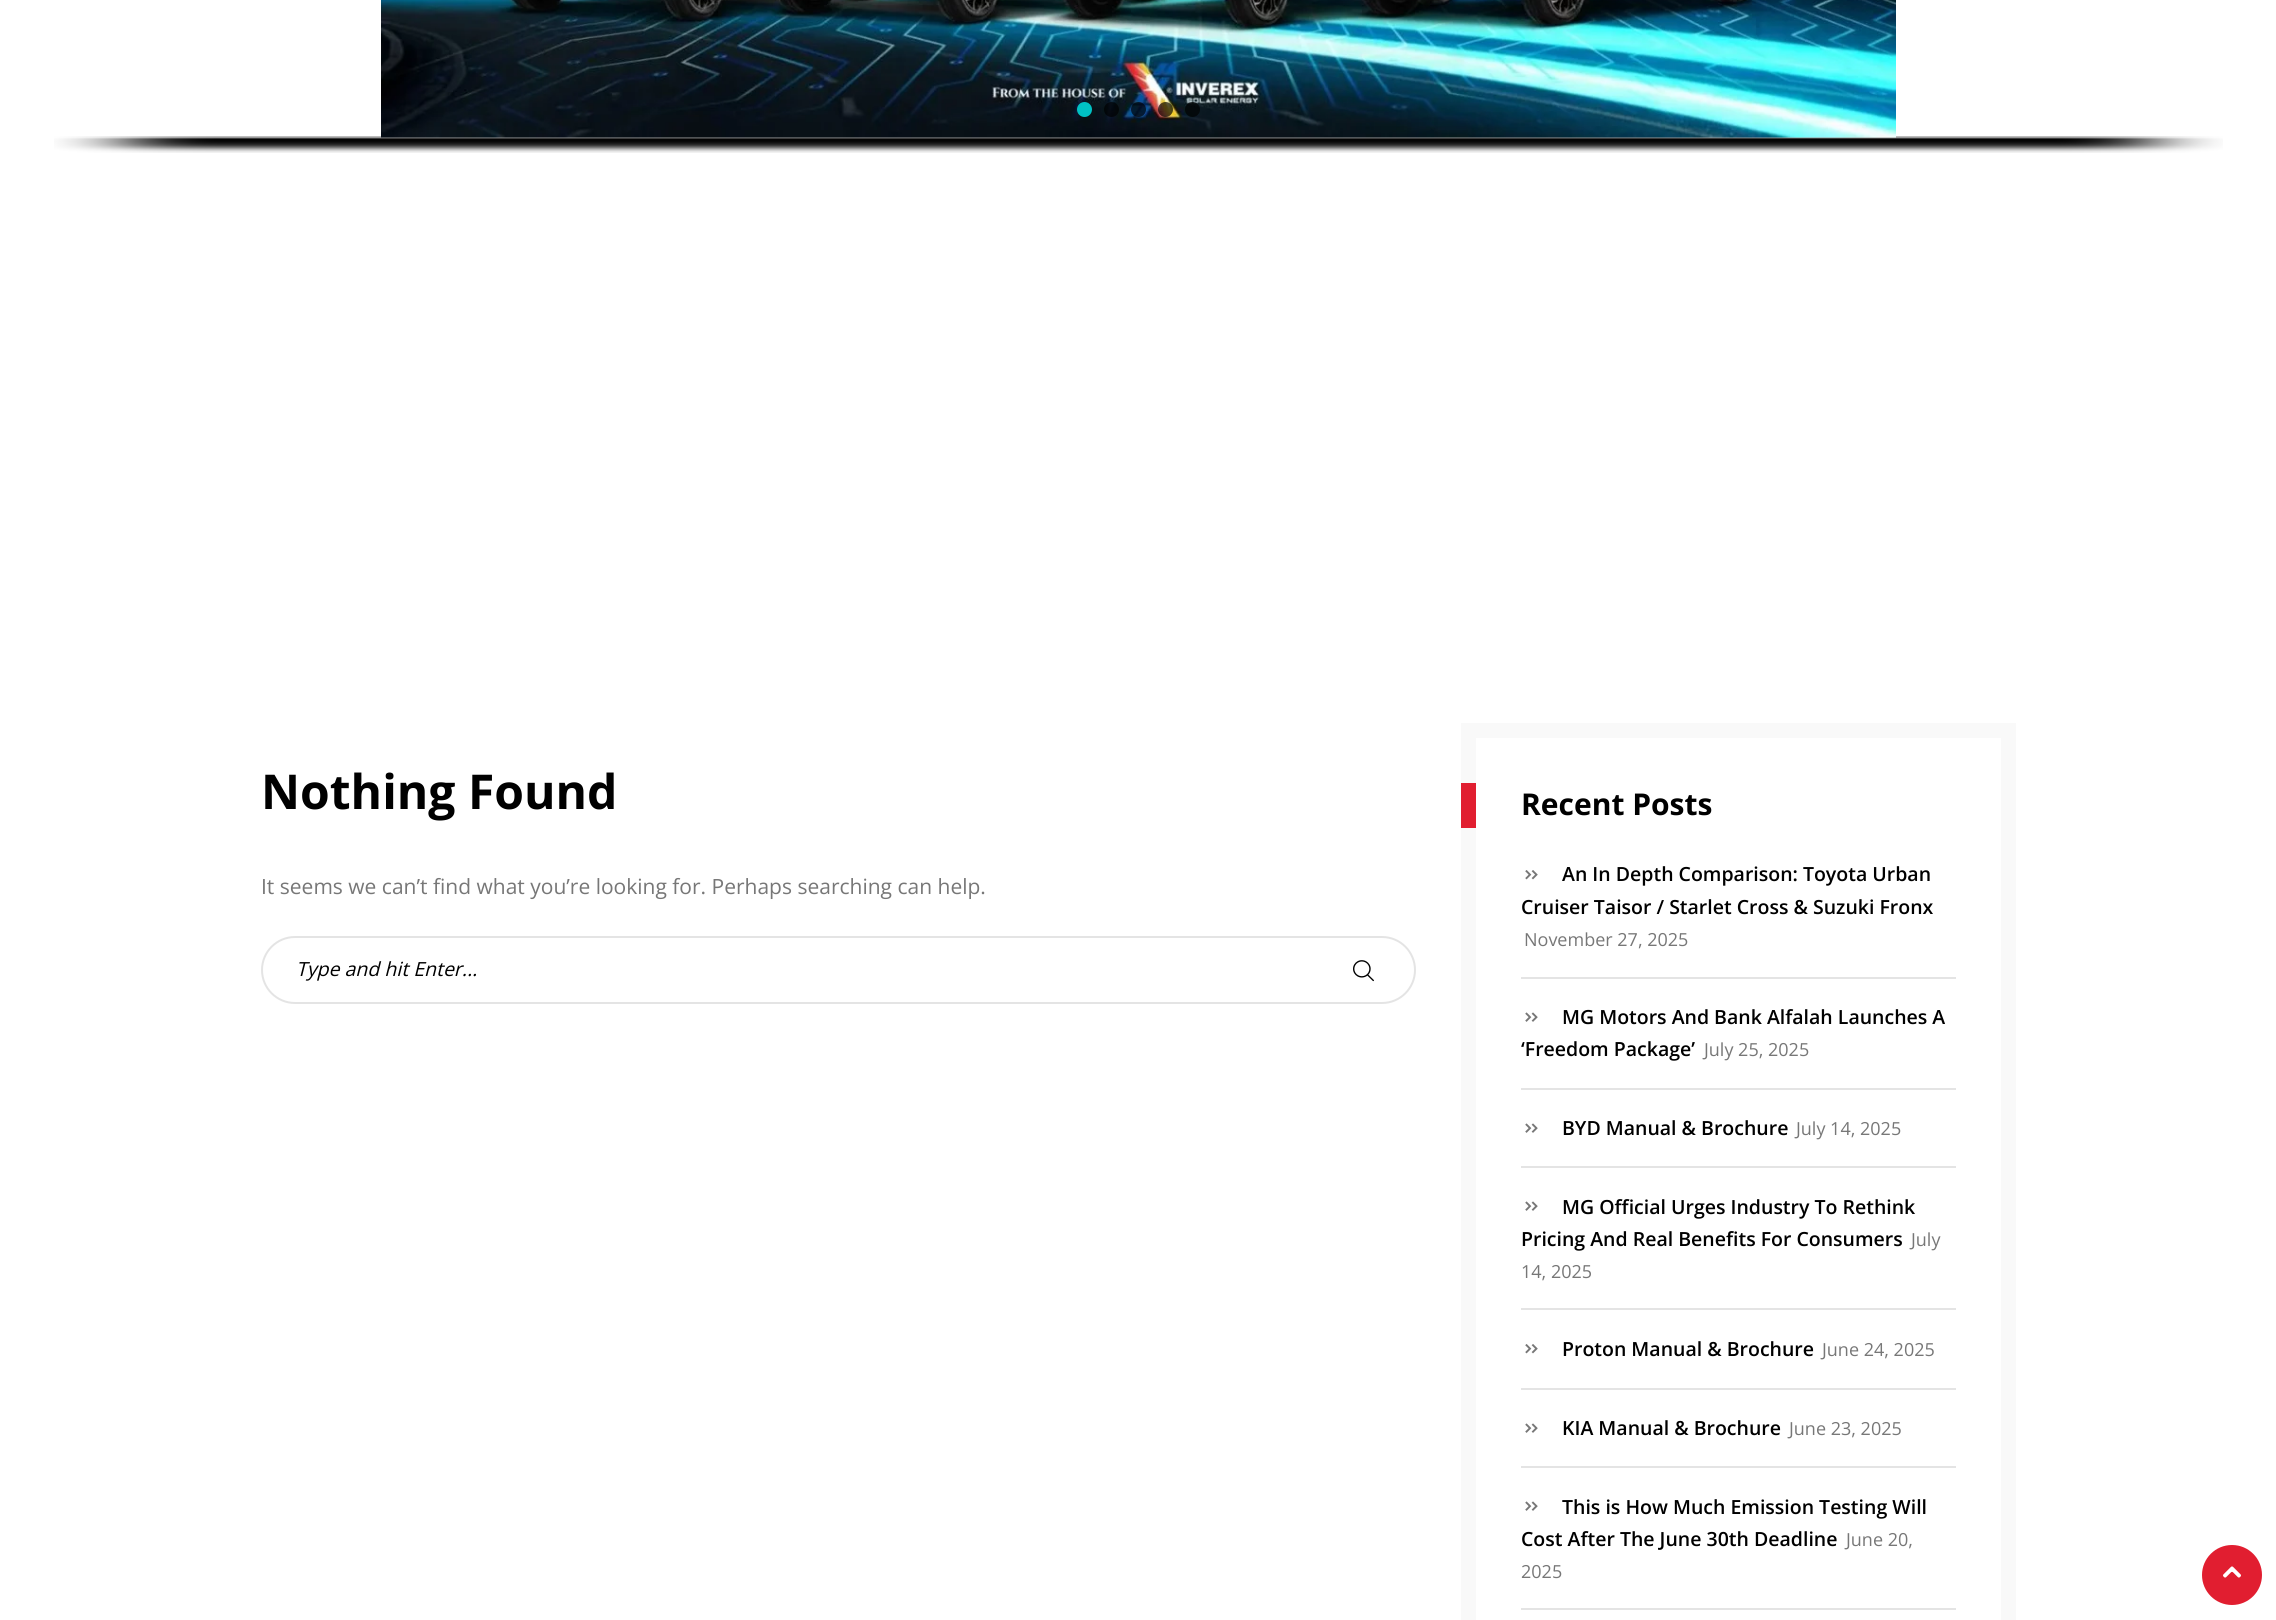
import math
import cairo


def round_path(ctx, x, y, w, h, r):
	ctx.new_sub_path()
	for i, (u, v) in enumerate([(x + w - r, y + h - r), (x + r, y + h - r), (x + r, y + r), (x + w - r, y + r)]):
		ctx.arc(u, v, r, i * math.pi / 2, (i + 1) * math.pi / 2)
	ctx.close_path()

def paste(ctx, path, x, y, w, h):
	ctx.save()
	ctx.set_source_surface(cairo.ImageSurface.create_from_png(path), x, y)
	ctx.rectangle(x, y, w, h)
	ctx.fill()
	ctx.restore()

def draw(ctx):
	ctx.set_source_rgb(1, 1, 1)
	ctx.paint()
	paste(ctx, 'media/2.png', 54, 136, 2169, 17)
	paste(ctx, 'media/1.png', 381, 0, 1515, 138)
	ctx.set_source_rgb(0, 0.757, 0.769)
	ctx.arc(1084.5, 109.5, 7.5, 0, 2 * math.pi)
	ctx.fill()
	ctx.set_source_rgba(0, 0, 0, 0.67)
	ctx.arc(1111.5, 109.5, 7.5, 0, 2 * math.pi)
	ctx.fill()
	ctx.arc(1138.5, 109.5, 7.5, 0, 2 * math.pi)
	ctx.fill()
	ctx.arc(1165.5, 109.5, 7.5, 0, 2 * math.pi)
	ctx.fill()
	ctx.arc(1192.5, 109.5, 7.5, 0, 2 * math.pi)
	ctx.fill()
	ctx.select_font_face('Open Sans', cairo.FONT_SLANT_NORMAL, cairo.FONT_WEIGHT_BOLD)
	ctx.set_font_size(48)
	ctx.set_source_rgb(0, 0, 0)
	ctx.move_to(261, 809)
	ctx.show_text('Nothing Found')
	ctx.select_font_face('Open Sans')
	ctx.set_font_size(21)
	ctx.set_source_rgb(0.467, 0.467, 0.467)
	ctx.move_to(261, 894)
	ctx.show_text('It seems we can’t find what you’re looking for. Perhaps searching can help.')
	round_path(ctx, 262, 937, 1153, 66, 33)
	ctx.set_source_rgb(0.894, 0.894, 0.894)
	ctx.stroke()
	ctx.select_font_face('Open Sans', cairo.FONT_SLANT_ITALIC)
	ctx.set_font_size(19.5)
	ctx.set_source_rgb(0, 0, 0)
	ctx.move_to(296, 976)
	ctx.show_text('Type and hit Enter...')
	paste(ctx, 'media/3.png', 1353, 960, 21, 22)
	ctx.rectangle(1468.5, 730.5, 540, 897)
	ctx.set_source_rgb(0.973, 0.973, 0.973)
	ctx.set_line_width(15)
	ctx.stroke()
	ctx.set_source_rgb(0.882, 0.118, 0.188)
	ctx.rectangle(1461, 783, 15, 45)
	ctx.fill()
	ctx.select_font_face('Open Sans', cairo.FONT_SLANT_NORMAL, cairo.FONT_WEIGHT_BOLD)
	ctx.set_font_size(30)
	ctx.set_source_rgb(0, 0, 0)
	ctx.move_to(1521, 815)
	ctx.show_text('Recent Posts')
	paste(ctx, 'media/4.png', 1525, 870, 13, 10)
	ctx.select_font_face('Open Sans SemiBold')
	ctx.set_font_size(19.5)
	ctx.move_to(1562, 881)
	ctx.show_text('An In Depth Comparison: Toyota Urban')
	ctx.move_to(1521, 914)
	ctx.show_text('Cruiser Taisor / Starlet Cross & Suzuki Fronx')
	ctx.select_font_face('Open Sans')
	ctx.set_font_size(18)
	ctx.set_source_rgb(0.467, 0.467, 0.467)
	ctx.move_to(1524, 946)
	ctx.show_text('November 27, 2025')
	ctx.set_source_rgb(0.894, 0.894, 0.894)
	ctx.rectangle(1521, 977, 435, 2)
	ctx.fill()
	paste(ctx, 'media/5.png', 1525, 1012, 13, 10)
	ctx.select_font_face('Open Sans SemiBold')
	ctx.set_font_size(19.5)
	ctx.set_source_rgb(0, 0, 0)
	ctx.move_to(1562, 1024)
	ctx.show_text('MG Motors And Bank Alfalah Launches A')
	ctx.move_to(1521, 1056)
	ctx.show_text('‘Freedom Package’')
	ctx.select_font_face('Open Sans')
	ctx.set_font_size(18)
	ctx.set_source_rgb(0.467, 0.467, 0.467)
	ctx.move_to(1704, 1056)
	ctx.show_text('July 25, 2025')
	ctx.set_source_rgb(0.894, 0.894, 0.894)
	ctx.rectangle(1521, 1088, 435, 2)
	ctx.fill()
	paste(ctx, 'media/5.png', 1525, 1123, 13, 10)
	ctx.select_font_face('Open Sans SemiBold')
	ctx.set_font_size(19.5)
	ctx.set_source_rgb(0, 0, 0)
	ctx.move_to(1562, 1135)
	ctx.show_text('BYD Manual & Brochure')
	ctx.select_font_face('Open Sans')
	ctx.set_font_size(18)
	ctx.set_source_rgb(0.467, 0.467, 0.467)
	ctx.move_to(1796, 1135)
	ctx.show_text('July 14, 2025')
	ctx.set_source_rgb(0.894, 0.894, 0.894)
	ctx.rectangle(1521, 1166, 435, 2)
	ctx.fill()
	paste(ctx, 'media/5.png', 1525, 1201, 13, 10)
	ctx.select_font_face('Open Sans SemiBold')
	ctx.set_font_size(19.5)
	ctx.set_source_rgb(0, 0, 0)
	ctx.move_to(1562, 1214)
	ctx.show_text('MG Official Urges Industry To Rethink')
	ctx.move_to(1521, 1246)
	ctx.show_text('Pricing And Real Benefits For Consumers')
	ctx.select_font_face('Open Sans')
	ctx.set_font_size(18)
	ctx.set_source_rgb(0.467, 0.467, 0.467)
	ctx.move_to(1911, 1246)
	ctx.show_text('July')
	ctx.move_to(1521, 1278)
	ctx.show_text('14, 2025')
	ctx.set_source_rgb(0.894, 0.894, 0.894)
	ctx.rectangle(1521, 1308, 435, 2)
	ctx.fill()
	paste(ctx, 'media/4.png', 1525, 1344, 13, 10)
	ctx.select_font_face('Open Sans SemiBold')
	ctx.set_font_size(19.5)
	ctx.set_source_rgb(0, 0, 0)
	ctx.move_to(1562, 1356)
	ctx.show_text('Proton Manual & Brochure')
	ctx.select_font_face('Open Sans')
	ctx.set_font_size(18)
	ctx.set_source_rgb(0.467, 0.467, 0.467)
	ctx.move_to(1822, 1356)
	ctx.show_text('June 24, 2025')
	ctx.set_source_rgb(0.894, 0.894, 0.894)
	ctx.rectangle(1521, 1388, 435, 2)
	ctx.fill()
	paste(ctx, 'media/5.png', 1525, 1423, 13, 10)
	ctx.select_font_face('Open Sans SemiBold')
	ctx.set_font_size(19.5)
	ctx.set_source_rgb(0, 0, 0)
	ctx.move_to(1562, 1435)
	ctx.show_text('KIA Manual & Brochure')
	ctx.select_font_face('Open Sans')
	ctx.set_font_size(18)
	ctx.set_source_rgb(0.467, 0.467, 0.467)
	ctx.move_to(1789, 1435)
	ctx.show_text('June 23, 2025')
	ctx.set_source_rgb(0.894, 0.894, 0.894)
	ctx.rectangle(1521, 1466, 435, 2)
	ctx.fill()
	paste(ctx, 'media/5.png', 1525, 1501, 13, 10)
	ctx.select_font_face('Open Sans SemiBold')
	ctx.set_font_size(19.5)
	ctx.set_source_rgb(0, 0, 0)
	ctx.move_to(1562, 1514)
	ctx.show_text('This is How Much Emission Testing Will')
	ctx.move_to(1521, 1546)
	ctx.show_text('Cost After The June 30th Deadline')
	ctx.select_font_face('Open Sans')
	ctx.set_font_size(18)
	ctx.set_source_rgb(0.467, 0.467, 0.467)
	ctx.move_to(1846, 1546)
	ctx.show_text('June 20,')
	ctx.move_to(1521, 1578)
	ctx.show_text('2025')
	ctx.set_source_rgb(0.894, 0.894, 0.894)
	ctx.rectangle(1521, 1608, 435, 2)
	ctx.fill()
	ctx.set_source_rgb(0.882, 0.118, 0.188)
	ctx.arc(2232, 1575, 30, 0, 2 * math.pi)
	ctx.fill()
	paste(ctx, 'media/6.png', 2223, 1566, 18, 12)


surface = cairo.ImageSurface(cairo.FORMAT_RGB24, 2276, 1620)
ctx = cairo.Context(surface)
options = cairo.FontOptions()
options.set_hint_metrics(cairo.HINT_METRICS_OFF)
options.set_hint_style(cairo.HINT_STYLE_NONE)
ctx.set_font_options(options)
ctx.set_miter_limit(4)
draw(ctx)
surface.write_to_png('image.png')
